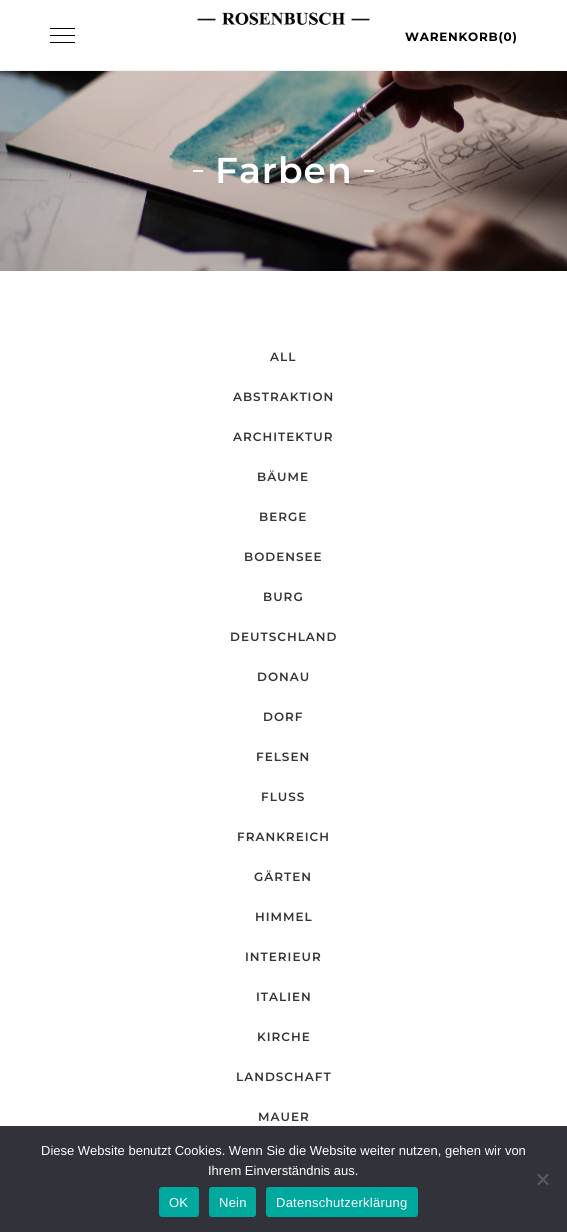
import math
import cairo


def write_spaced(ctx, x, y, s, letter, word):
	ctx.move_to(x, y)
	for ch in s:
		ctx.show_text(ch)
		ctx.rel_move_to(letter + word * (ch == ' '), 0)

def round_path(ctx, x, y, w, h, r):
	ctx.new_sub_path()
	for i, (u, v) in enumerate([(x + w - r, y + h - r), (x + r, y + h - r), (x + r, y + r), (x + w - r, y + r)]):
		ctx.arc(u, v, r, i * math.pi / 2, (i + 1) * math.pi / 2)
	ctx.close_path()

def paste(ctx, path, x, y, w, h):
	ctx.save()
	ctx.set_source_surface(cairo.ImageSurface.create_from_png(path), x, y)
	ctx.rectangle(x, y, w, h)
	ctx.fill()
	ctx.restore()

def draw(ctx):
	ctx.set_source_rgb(1, 1, 1)
	ctx.paint()
	ctx.set_source_rgb(0.949, 0.949, 0.949)
	ctx.rectangle(0, 70, 567, 1)
	ctx.fill()
	paste(ctx, 'media/1.png', 197, 12, 173, 13)
	ctx.set_source_rgb(0, 0, 0)
	ctx.rectangle(50, 28, 25, 1)
	ctx.rectangle(50, 35, 25, 1)
	ctx.rectangle(50, 42, 25, 1)
	ctx.fill()
	ctx.select_font_face('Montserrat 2 Thin')
	ctx.set_font_size(12)
	write_spaced(ctx, 405, 41, 'WARENKORB(0)', 0.75, 0)
	paste(ctx, 'media/2.png', 0, 71, 567, 200)
	ctx.set_source_rgb(1, 1, 1)
	ctx.rectangle(193, 170, 10, 2)
	ctx.fill()
	ctx.select_font_face('Montserrat Thin')
	ctx.set_font_size(36)
	write_spaced(ctx, 215, 183, 'Farben', 1, 0)
	ctx.rectangle(364, 170, 10, 2)
	ctx.fill()
	ctx.set_font_size(12)
	ctx.set_source_rgb(0.208, 0.208, 0.208)
	for x, y, s in [
		(270, 361, 'ALL'),
		(233, 401, 'ABSTRAKTION'),
		(233, 441, 'ARCHITEKTUR'),
		(257, 481, 'BÄUME'),
		(259, 521, 'BERGE'),
		(244, 561, 'BODENSEE'),
		(263, 601, 'BURG'),
		(230, 641, 'DEUTSCHLAND'),
		(257, 681, 'DONAU'),
		(263, 721, 'DORF'),
		(256, 761, 'FELSEN'),
		(261, 801, 'FLUSS'),
		(237, 841, 'FRANKREICH'),
		(254, 881, 'GÄRTEN'),
		(255, 921, 'HIMMEL'),
		(245, 961, 'INTERIEUR'),
		(256, 1001, 'ITALIEN'),
		(257, 1041, 'KIRCHE'),
		(236, 1081, 'LANDSCHAFT'),
		(258, 1121, 'MAUER'),
	]:
		write_spaced(ctx, x, y, s, 1, 0)
	ctx.set_source_rgb(0.196, 0.196, 0.227)
	ctx.rectangle(0, 1126, 567, 106)
	ctx.fill()
	ctx.select_font_face('Liberation Sans')
	ctx.set_font_size(13)
	ctx.set_source_rgb(1, 1, 1)
	ctx.move_to(41, 1155)
	ctx.show_text('Diese Website benutzt Cookies. Wenn Sie die Website weiter nutzen, gehen wir von')
	ctx.move_to(208, 1175)
	ctx.show_text('Ihrem Einverständnis aus.')
	ctx.set_source_rgb(0.349, 0.349, 0.365)
	ctx.new_path()
	ctx.move_to(547.5, 1173.5)
	ctx.line_to(549, 1175)
	ctx.line_to(538.5, 1185.5)
	ctx.line_to(537, 1184)
	ctx.close_path()
	ctx.fill()
	ctx.new_path()
	ctx.move_to(537, 1175)
	ctx.line_to(538.5, 1173.5)
	ctx.line_to(549, 1184)
	ctx.line_to(547.5, 1185.5)
	ctx.close_path()
	ctx.fill()
	ctx.set_source_rgb(0, 0.663, 0.616)
	round_path(ctx, 159, 1187, 40, 30, 3)
	ctx.fill()
	ctx.set_source_rgb(1, 1, 1)
	write_spaced(ctx, 169, 1207, 'OK', 0.25, 0)
	ctx.set_source_rgb(0, 0.663, 0.616)
	round_path(ctx, 209, 1187, 47, 30, 3)
	ctx.fill()
	ctx.set_source_rgb(1, 1, 1)
	write_spaced(ctx, 219, 1207, 'Nein', 0.25, 0)
	ctx.set_source_rgb(0, 0.663, 0.616)
	round_path(ctx, 266, 1187, 152, 30, 3)
	ctx.fill()
	ctx.set_source_rgb(1, 1, 1)
	write_spaced(ctx, 276, 1207, 'Datenschutzerklärung', 0.25, 0)


surface = cairo.ImageSurface(cairo.FORMAT_RGB24, 567, 1232)
ctx = cairo.Context(surface)
options = cairo.FontOptions()
options.set_hint_metrics(cairo.HINT_METRICS_OFF)
options.set_hint_style(cairo.HINT_STYLE_NONE)
ctx.set_font_options(options)
ctx.set_miter_limit(4)
draw(ctx)
surface.write_to_png('image.png')
